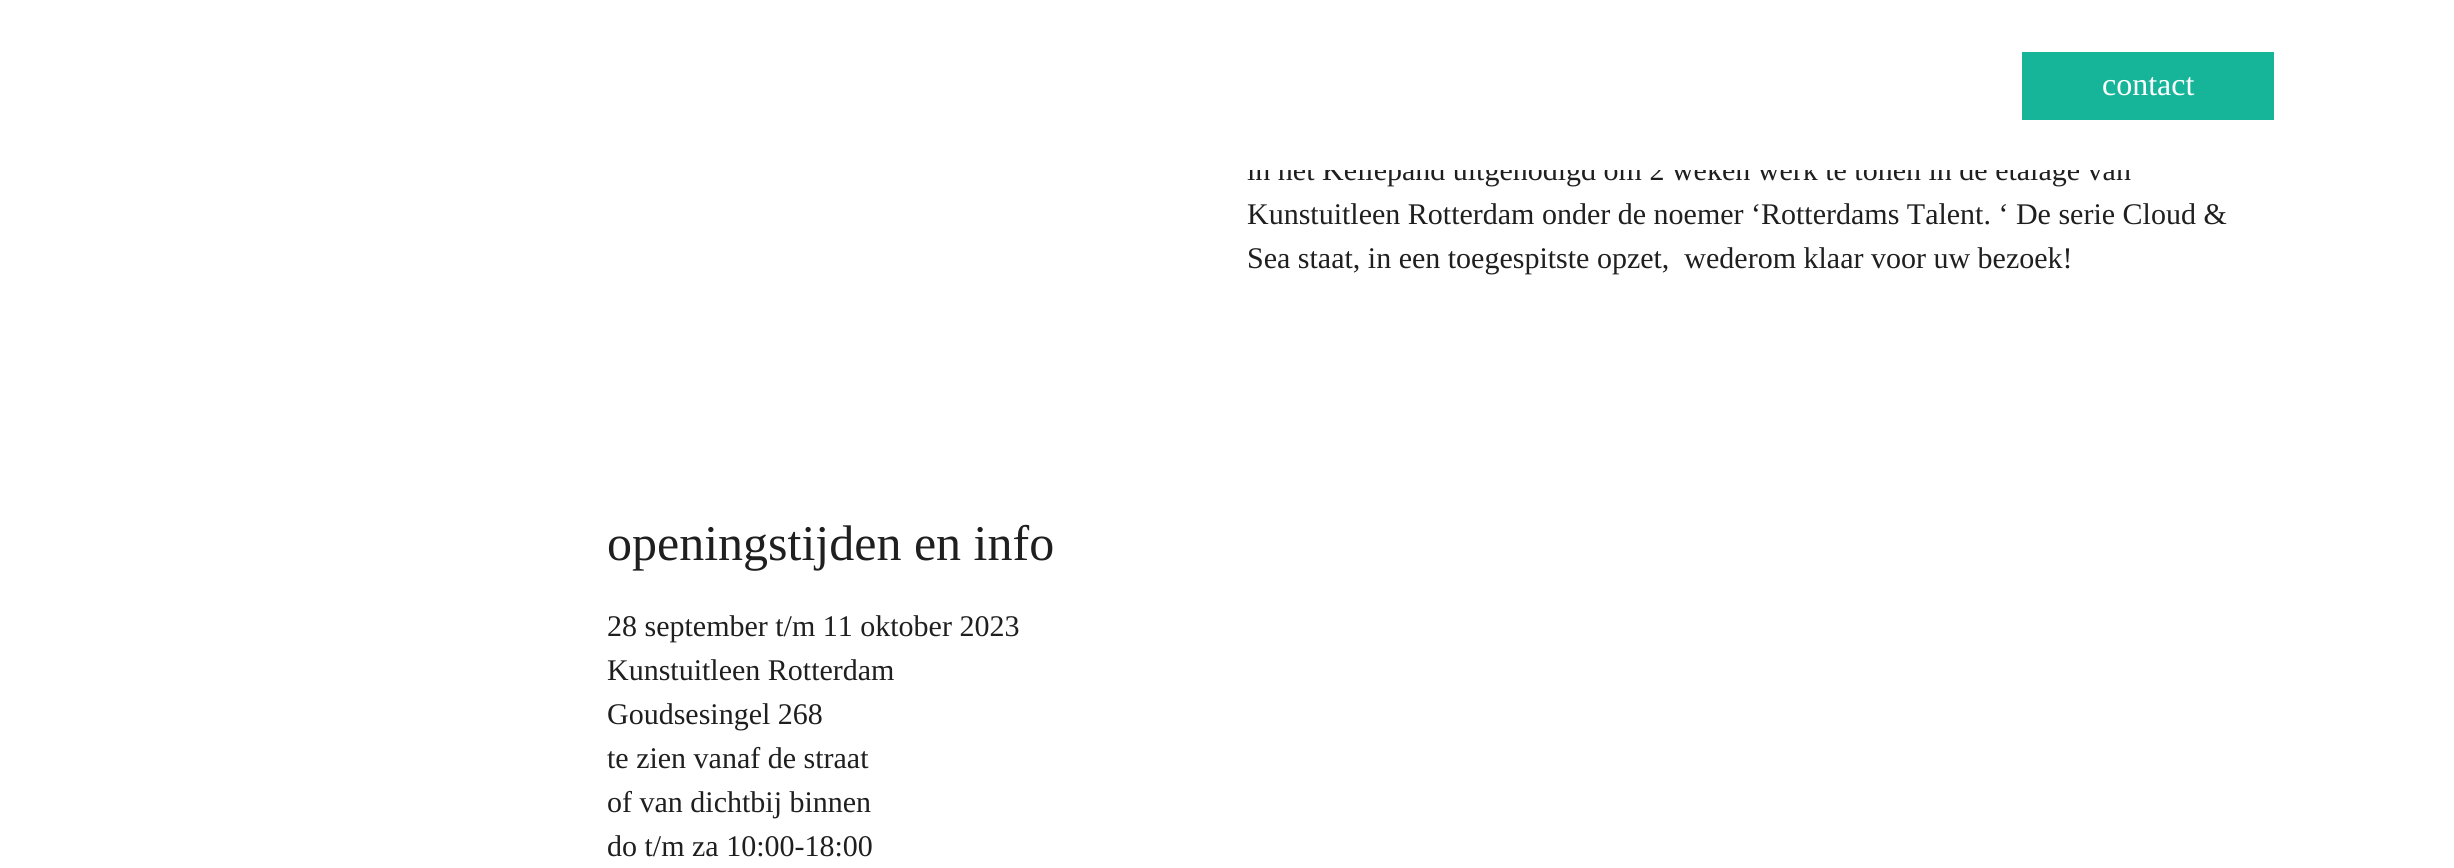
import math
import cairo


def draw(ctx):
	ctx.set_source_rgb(1, 1, 1)
	ctx.paint()
	ctx.select_font_face('Liberation Serif')
	ctx.set_font_size(30)
	ctx.set_source_rgb(0.122, 0.122, 0.122)
	ctx.move_to(1247, 180)
	ctx.show_text('in het Keilepand uitgenodigd om 2 weken werk te tonen in de etalage van')
	ctx.set_source_rgb(1, 1, 1)
	ctx.rectangle(1248, 159, 881, 11)
	ctx.fill()
	ctx.set_source_rgb(0.086, 0.71, 0.6)
	ctx.rectangle(2022, 52, 252, 68)
	ctx.fill()
	ctx.set_font_size(32)
	ctx.set_source_rgb(1, 1, 1)
	ctx.move_to(2102, 95)
	ctx.show_text('contact')
	ctx.set_font_size(30)
	ctx.set_source_rgb(0.122, 0.122, 0.122)
	ctx.move_to(1247, 224)
	ctx.show_text('Kunstuitleen Rotterdam onder de noemer ‘Rotterdams Talent. ‘ De serie Cloud &')
	ctx.move_to(1247, 268)
	ctx.show_text('Sea staat, in een toegespitste opzet,  wederom klaar voor uw bezoek!')
	ctx.set_font_size(50)
	ctx.move_to(607, 560)
	ctx.show_text('openingstijden en info')
	ctx.set_font_size(30)
	for x, y, s in [
		(607, 636, '28 september t/m 11 oktober 2023'),
		(607, 680, 'Kunstuitleen Rotterdam'),
		(607, 724, 'Goudsesingel 268'),
		(607, 768, 'te zien vanaf de straat'),
		(607, 812, 'of van dichtbij binnen'),
		(607, 856, 'do t/m za 10:00-18:00'),
	]:
		ctx.move_to(x, y)
		ctx.show_text(s)


surface = cairo.ImageSurface(cairo.FORMAT_RGB24, 2454, 868)
ctx = cairo.Context(surface)
options = cairo.FontOptions()
options.set_hint_metrics(cairo.HINT_METRICS_OFF)
options.set_hint_style(cairo.HINT_STYLE_NONE)
ctx.set_font_options(options)
ctx.set_miter_limit(4)
draw(ctx)
surface.write_to_png('image.png')
